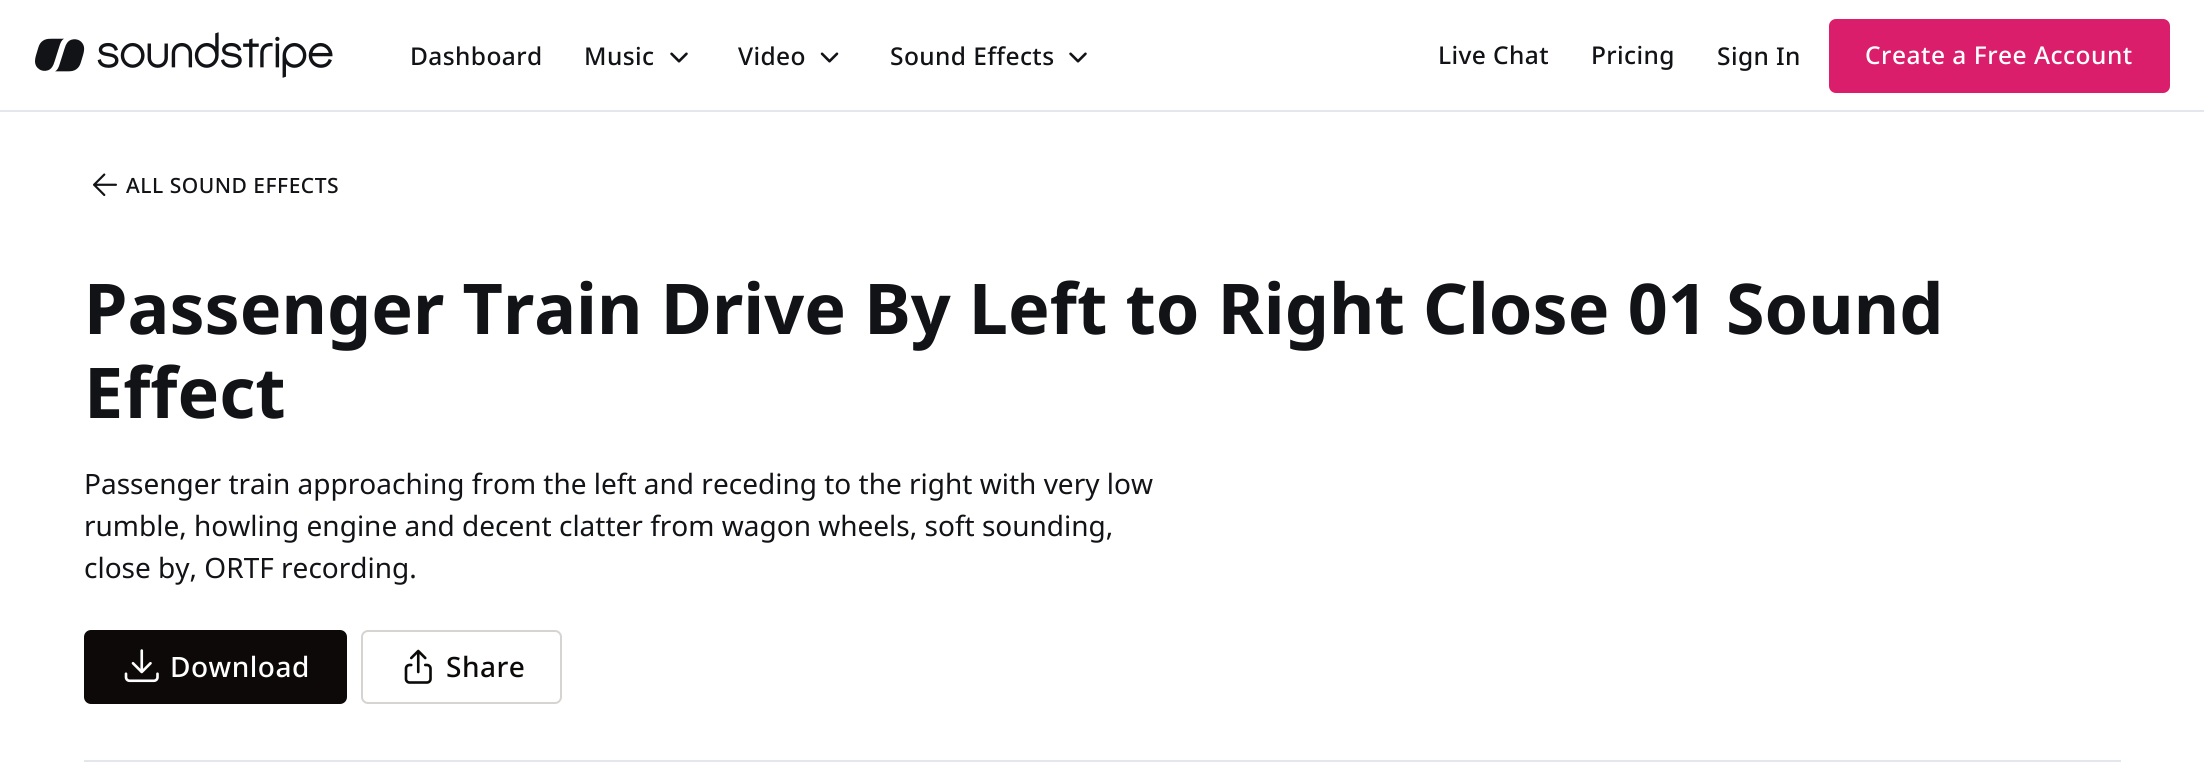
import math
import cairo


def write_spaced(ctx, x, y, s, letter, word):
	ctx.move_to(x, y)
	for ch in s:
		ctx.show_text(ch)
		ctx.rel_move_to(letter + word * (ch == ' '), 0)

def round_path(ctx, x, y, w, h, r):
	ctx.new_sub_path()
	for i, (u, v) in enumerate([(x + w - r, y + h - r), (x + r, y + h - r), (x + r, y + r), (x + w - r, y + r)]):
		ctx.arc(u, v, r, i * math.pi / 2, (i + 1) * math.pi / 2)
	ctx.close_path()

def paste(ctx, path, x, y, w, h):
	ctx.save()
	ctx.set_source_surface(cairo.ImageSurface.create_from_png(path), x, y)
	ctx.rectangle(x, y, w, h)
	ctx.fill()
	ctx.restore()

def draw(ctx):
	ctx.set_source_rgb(1, 1, 1)
	ctx.paint()
	ctx.set_source_rgb(0.89, 0.902, 0.929)
	ctx.rectangle(0, 110, 2204, 2)
	ctx.fill()
	paste(ctx, 'media/1.png', 35, 32, 298, 46)
	ctx.select_font_face('Noto Sans Medium')
	ctx.set_font_size(24.5)
	ctx.set_source_rgb(0.067, 0.075, 0.09)
	write_spaced(ctx, 410, 65, 'Dashboard', 0.4, 0)
	write_spaced(ctx, 584, 65, 'Music', 0.4, 0)
	paste(ctx, 'media/2.png', 670, 52, 18, 11)
	write_spaced(ctx, 738, 65, 'Video', 0.4, 0)
	paste(ctx, 'media/3.png', 820, 52, 19, 11)
	write_spaced(ctx, 890, 65, 'Sound Effects', 0.4, 0)
	paste(ctx, 'media/2.png', 1069, 52, 18, 11)
	for x, y, s in [
		(1438, 64, 'Live Chat'),
		(1591, 64, 'Pricing'),
		(1717, 65, 'Sign In'),
	]:
		write_spaced(ctx, x, y, s, 0.4, 0)
	ctx.set_source_rgb(0.859, 0.118, 0.42)
	round_path(ctx, 1829, 19, 341, 74, 7)
	ctx.fill()
	ctx.set_source_rgb(1, 1, 1)
	write_spaced(ctx, 1865, 64, 'Create a Free Account', 0.5, 0)
	ctx.set_source_rgb(0.89, 0.902, 0.929)
	ctx.rectangle(84, 760, 2037, 2)
	ctx.fill()
	paste(ctx, 'media/4.png', 93, 173, 24, 24)
	ctx.set_font_size(21)
	ctx.set_source_rgb(0.067, 0.075, 0.09)
	write_spaced(ctx, 126, 193, 'ALL SOUND EFFECTS', 0.5, 0)
	ctx.select_font_face('Noto Sans', cairo.FONT_SLANT_NORMAL, cairo.FONT_WEIGHT_BOLD)
	ctx.set_font_size(70)
	ctx.move_to(84, 334)
	ctx.show_text('Passenger Train Drive By Left to Right Close 01 Sound')
	ctx.move_to(84, 418)
	ctx.show_text('Effect')
	ctx.select_font_face('Noto Sans')
	ctx.set_font_size(28)
	for x, y, s in [
		(84, 494, 'Passenger train approaching from the left and receding to the right with very low'),
		(84, 536, 'rumble, howling engine and decent clatter from wagon wheels, soft sounding,'),
		(84, 578, 'close by, ORTF recording.'),
	]:
		ctx.move_to(x, y)
		ctx.show_text(s)
	ctx.set_source_rgb(0.047, 0.039, 0.035)
	round_path(ctx, 84, 630, 263, 74, 7)
	ctx.fill()
	paste(ctx, 'media/5.png', 124, 649, 35, 34)
	ctx.select_font_face('Noto Sans Medium')
	ctx.set_source_rgb(1, 1, 1)
	write_spaced(ctx, 170, 677, 'Download', 0.5, 0)
	round_path(ctx, 362, 631, 199, 72, 6)
	ctx.set_source_rgb(0.839, 0.827, 0.82)
	ctx.stroke()
	paste(ctx, 'media/6.png', 404, 649, 28, 35)
	ctx.set_source_rgb(0.047, 0.039, 0.035)
	write_spaced(ctx, 446, 677, 'Share', 0.5, 0)


surface = cairo.ImageSurface(cairo.FORMAT_RGB24, 2204, 778)
ctx = cairo.Context(surface)
options = cairo.FontOptions()
options.set_hint_metrics(cairo.HINT_METRICS_OFF)
options.set_hint_style(cairo.HINT_STYLE_NONE)
ctx.set_font_options(options)
ctx.set_miter_limit(4)
draw(ctx)
surface.write_to_png('image.png')
